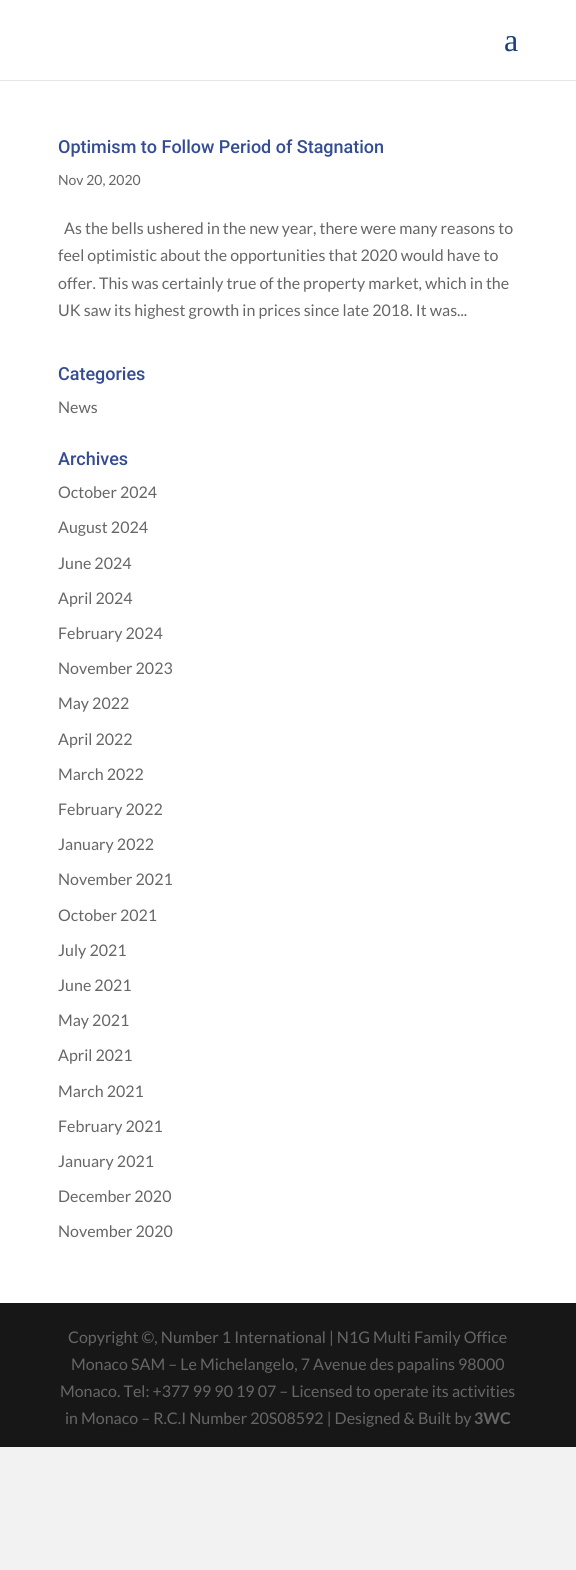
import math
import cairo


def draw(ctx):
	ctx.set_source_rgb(0.949, 0.949, 0.949)
	ctx.paint()
	ctx.set_source_rgb(0.902, 0.902, 0.902)
	ctx.rectangle(0, 80, 576, 1)
	ctx.fill()
	ctx.set_source_rgb(1, 1, 1)
	ctx.rectangle(0, 0, 576, 80)
	ctx.fill()
	ctx.select_font_face('Liberation Serif')
	ctx.set_font_size(32)
	ctx.set_source_rgb(0.078, 0.259, 0.49)
	ctx.move_to(504, 51)
	ctx.show_text('a')
	ctx.set_source_rgb(1, 1, 1)
	ctx.rectangle(0, 81, 576, 1222)
	ctx.fill()
	ctx.select_font_face('Roboto Medium')
	ctx.set_font_size(18)
	ctx.set_source_rgb(0.204, 0.298, 0.569)
	ctx.move_to(58, 153)
	ctx.show_text('Optimism to Follow Period of Stagnation')
	ctx.select_font_face('Lato')
	ctx.set_font_size(14)
	ctx.set_source_rgb(0.4, 0.4, 0.4)
	ctx.move_to(58, 185)
	ctx.show_text('Nov 20, 2020')
	ctx.set_font_size(16)
	for x, y, s in [
		(64, 234, 'As the bells ushered in the new year, there were many reasons to'),
		(58, 261, 'feel optimistic about the opportunities that 2020 would have to'),
		(58, 289, 'offer. This was certainly true of the property market, which in the'),
		(58, 316, 'UK saw its highest growth in prices since late 2018. It was...'),
	]:
		ctx.move_to(x, y)
		ctx.show_text(s)
	ctx.select_font_face('Roboto Medium')
	ctx.set_font_size(18)
	ctx.set_source_rgb(0.204, 0.298, 0.569)
	ctx.move_to(58, 380)
	ctx.show_text('Categories')
	ctx.select_font_face('Lato')
	ctx.set_font_size(16)
	ctx.set_source_rgb(0.4, 0.4, 0.4)
	ctx.move_to(58, 413)
	ctx.show_text('News')
	ctx.select_font_face('Roboto Medium')
	ctx.set_font_size(18)
	ctx.set_source_rgb(0.204, 0.298, 0.569)
	ctx.move_to(58, 465)
	ctx.show_text('Archives')
	ctx.select_font_face('Lato')
	ctx.set_font_size(16)
	ctx.set_source_rgb(0.4, 0.4, 0.4)
	for x, y, s in [
		(58, 498, 'October 2024'),
		(58, 533, 'August 2024'),
		(58, 569, 'June 2024'),
		(58, 604, 'April 2024'),
		(58, 639, 'February 2024'),
		(58, 674, 'November 2023'),
		(58, 709, 'May 2022'),
		(58, 745, 'April 2022'),
		(58, 780, 'March 2022'),
		(58, 815, 'February 2022'),
		(58, 850, 'January 2022'),
		(58, 885, 'November 2021'),
		(58, 921, 'October 2021'),
		(58, 956, 'July 2021'),
		(58, 991, 'June 2021'),
		(58, 1026, 'May 2021'),
		(58, 1061, 'April 2021'),
		(58, 1097, 'March 2021'),
		(58, 1132, 'February 2021'),
		(58, 1167, 'January 2021'),
		(58, 1202, 'December 2020'),
		(58, 1237, 'November 2020'),
	]:
		ctx.move_to(x, y)
		ctx.show_text(s)
	ctx.set_source_rgb(0.09, 0.09, 0.09)
	ctx.rectangle(0, 1303, 576, 144)
	ctx.fill()
	ctx.set_source_rgb(0.4, 0.4, 0.4)
	for x, y, s in [
		(68, 1343, 'Copyright ©, Number 1 International | N1G Multi Family Office'),
		(71, 1370, 'Monaco SAM – Le Michelangelo, 7 Avenue des papalins 98000'),
		(60, 1397, 'Monaco. Tel: +377 99 90 19 07 – Licensed to operate its activities'),
		(65, 1424, 'in Monaco – R.C.I Number 20S08592 | Designed & Built by'),
	]:
		ctx.move_to(x, y)
		ctx.show_text(s)
	ctx.select_font_face('Lato', cairo.FONT_SLANT_NORMAL, cairo.FONT_WEIGHT_BOLD)
	ctx.move_to(474, 1424)
	ctx.show_text('3WC')


surface = cairo.ImageSurface(cairo.FORMAT_RGB24, 576, 1570)
ctx = cairo.Context(surface)
options = cairo.FontOptions()
options.set_hint_metrics(cairo.HINT_METRICS_OFF)
options.set_hint_style(cairo.HINT_STYLE_NONE)
ctx.set_font_options(options)
ctx.set_miter_limit(4)
draw(ctx)
surface.write_to_png('image.png')
